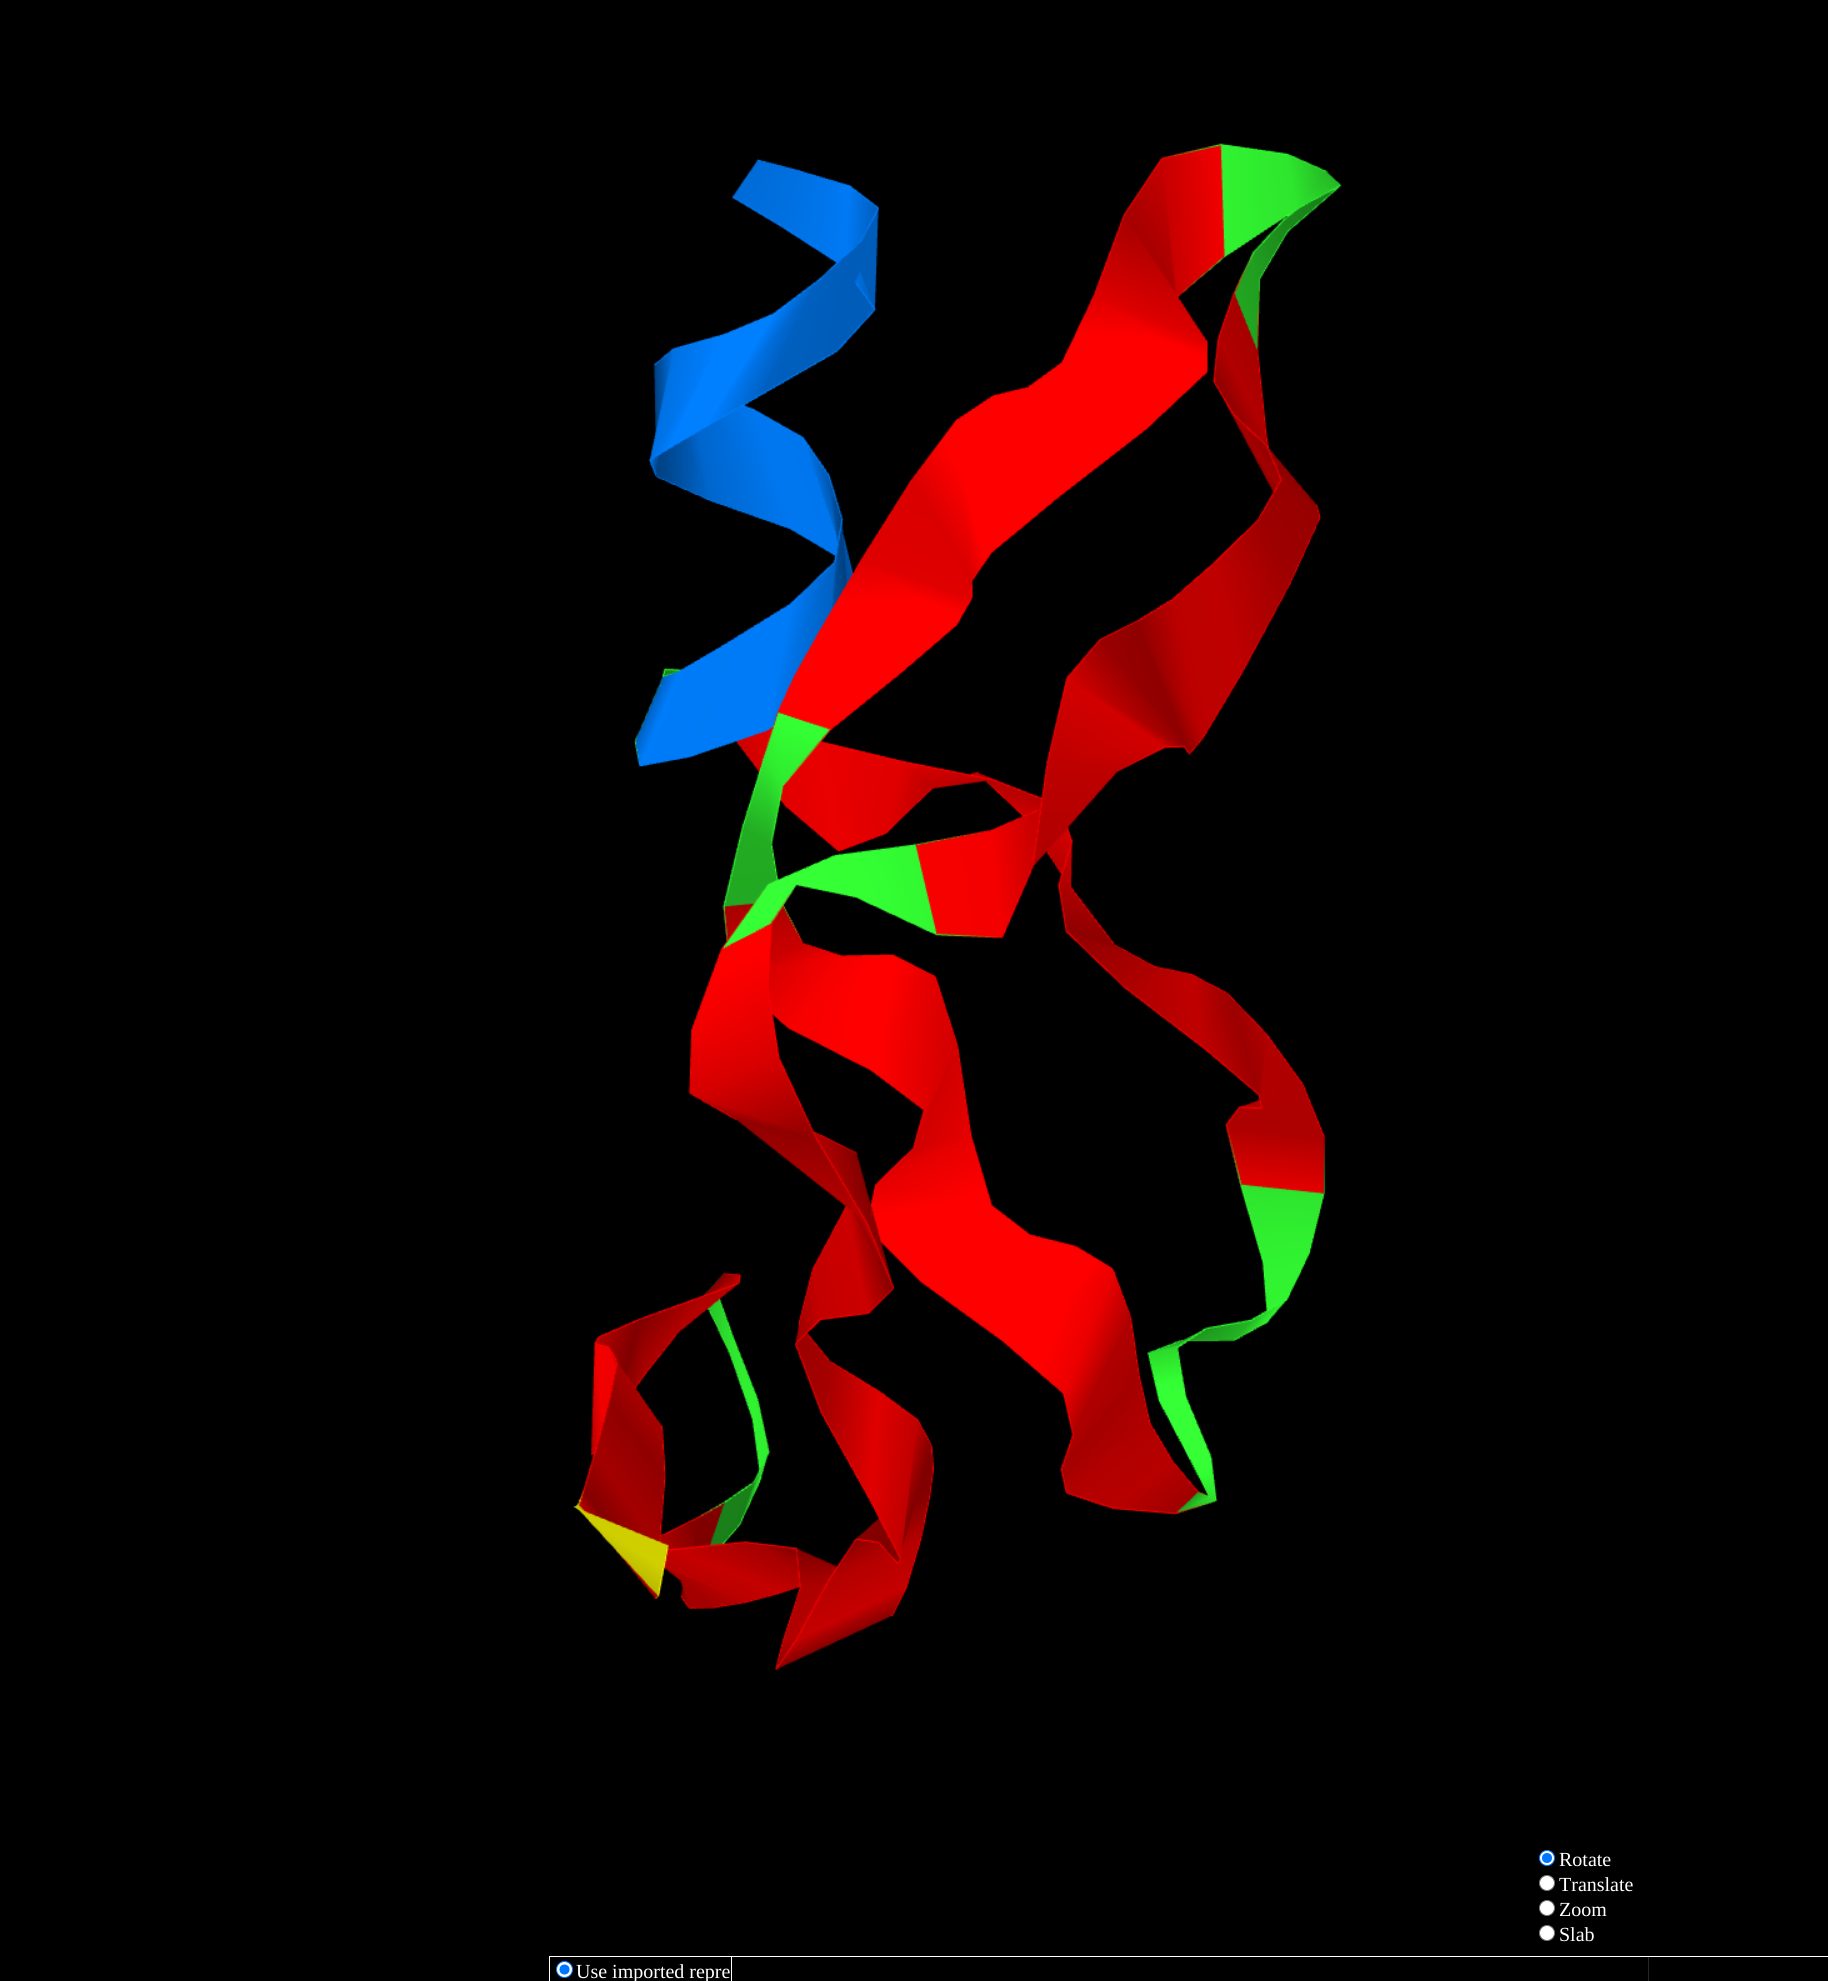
import math
import cairo


def paste(ctx, path, x, y, w, h):
	ctx.save()
	ctx.set_source_surface(cairo.ImageSurface.create_from_png(path), x, y)
	ctx.rectangle(x, y, w, h)
	ctx.fill()
	ctx.restore()

def draw(ctx):
	ctx.set_source_rgb(0, 0, 0)
	ctx.paint()
	paste(ctx, 'media/1.png', 573, 143, 769, 1528)
	ctx.rectangle(549.5, 1956.5, 1099, 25)
	ctx.set_source_rgb(1, 1, 1)
	ctx.set_line_width(1)
	ctx.stroke()
	ctx.set_source_rgba(0, 0, 0, 0.65)
	ctx.rectangle(1533, 1956, 101, 1)
	ctx.fill()
	ctx.set_source_rgb(1, 1, 1)
	ctx.arc(1547, 1858, 7.5, 0, 2 * math.pi)
	ctx.fill_preserve()
	ctx.set_source_rgb(0, 0.459, 1)
	ctx.stroke()
	ctx.arc(1547, 1858, 5, 0, 2 * math.pi)
	ctx.fill()
	ctx.select_font_face('Liberation Serif')
	ctx.set_font_size(20)
	ctx.set_source_rgb(1, 1, 1)
	ctx.move_to(1559, 1866)
	ctx.show_text('Rotate')
	ctx.new_path()
	ctx.arc(1547, 1883, 7.5, 0, 2 * math.pi)
	ctx.fill_preserve()
	ctx.set_source_rgb(0.463, 0.463, 0.463)
	ctx.stroke()
	ctx.set_source_rgb(1, 1, 1)
	ctx.move_to(1559, 1891)
	ctx.show_text('Translate')
	ctx.new_path()
	ctx.arc(1547, 1908, 7.5, 0, 2 * math.pi)
	ctx.fill_preserve()
	ctx.set_source_rgb(0.463, 0.463, 0.463)
	ctx.stroke()
	ctx.set_source_rgb(1, 1, 1)
	ctx.move_to(1559, 1916)
	ctx.show_text('Zoom')
	ctx.new_path()
	ctx.arc(1547, 1933, 7.5, 0, 2 * math.pi)
	ctx.fill_preserve()
	ctx.set_source_rgb(0.463, 0.463, 0.463)
	ctx.stroke()
	ctx.set_source_rgb(1, 1, 1)
	ctx.move_to(1559, 1941)
	ctx.show_text('Slab')
	ctx.new_path()
	ctx.arc(564.5, 1969.5, 8, 0, 2 * math.pi)
	ctx.fill_preserve()
	ctx.set_source_rgb(0, 0.459, 1)
	ctx.stroke()
	ctx.arc(564.5, 1969.5, 5, 0, 2 * math.pi)
	ctx.fill()
	ctx.set_source_rgb(1, 1, 1)
	ctx.move_to(576, 1978)
	ctx.show_text('Use imported repre')
	ctx.set_source_rgba(0, 0, 0, 0.85)
	ctx.rectangle(1648, 1957, 1, 24)
	ctx.fill()
	ctx.rectangle(731.5, 1956.5, 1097, 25)
	ctx.set_source_rgb(1, 1, 1)
	ctx.stroke()


surface = cairo.ImageSurface(cairo.FORMAT_RGB24, 1828, 1981)
ctx = cairo.Context(surface)
options = cairo.FontOptions()
options.set_hint_metrics(cairo.HINT_METRICS_OFF)
options.set_hint_style(cairo.HINT_STYLE_NONE)
ctx.set_font_options(options)
ctx.set_miter_limit(4)
draw(ctx)
surface.write_to_png('image.png')
